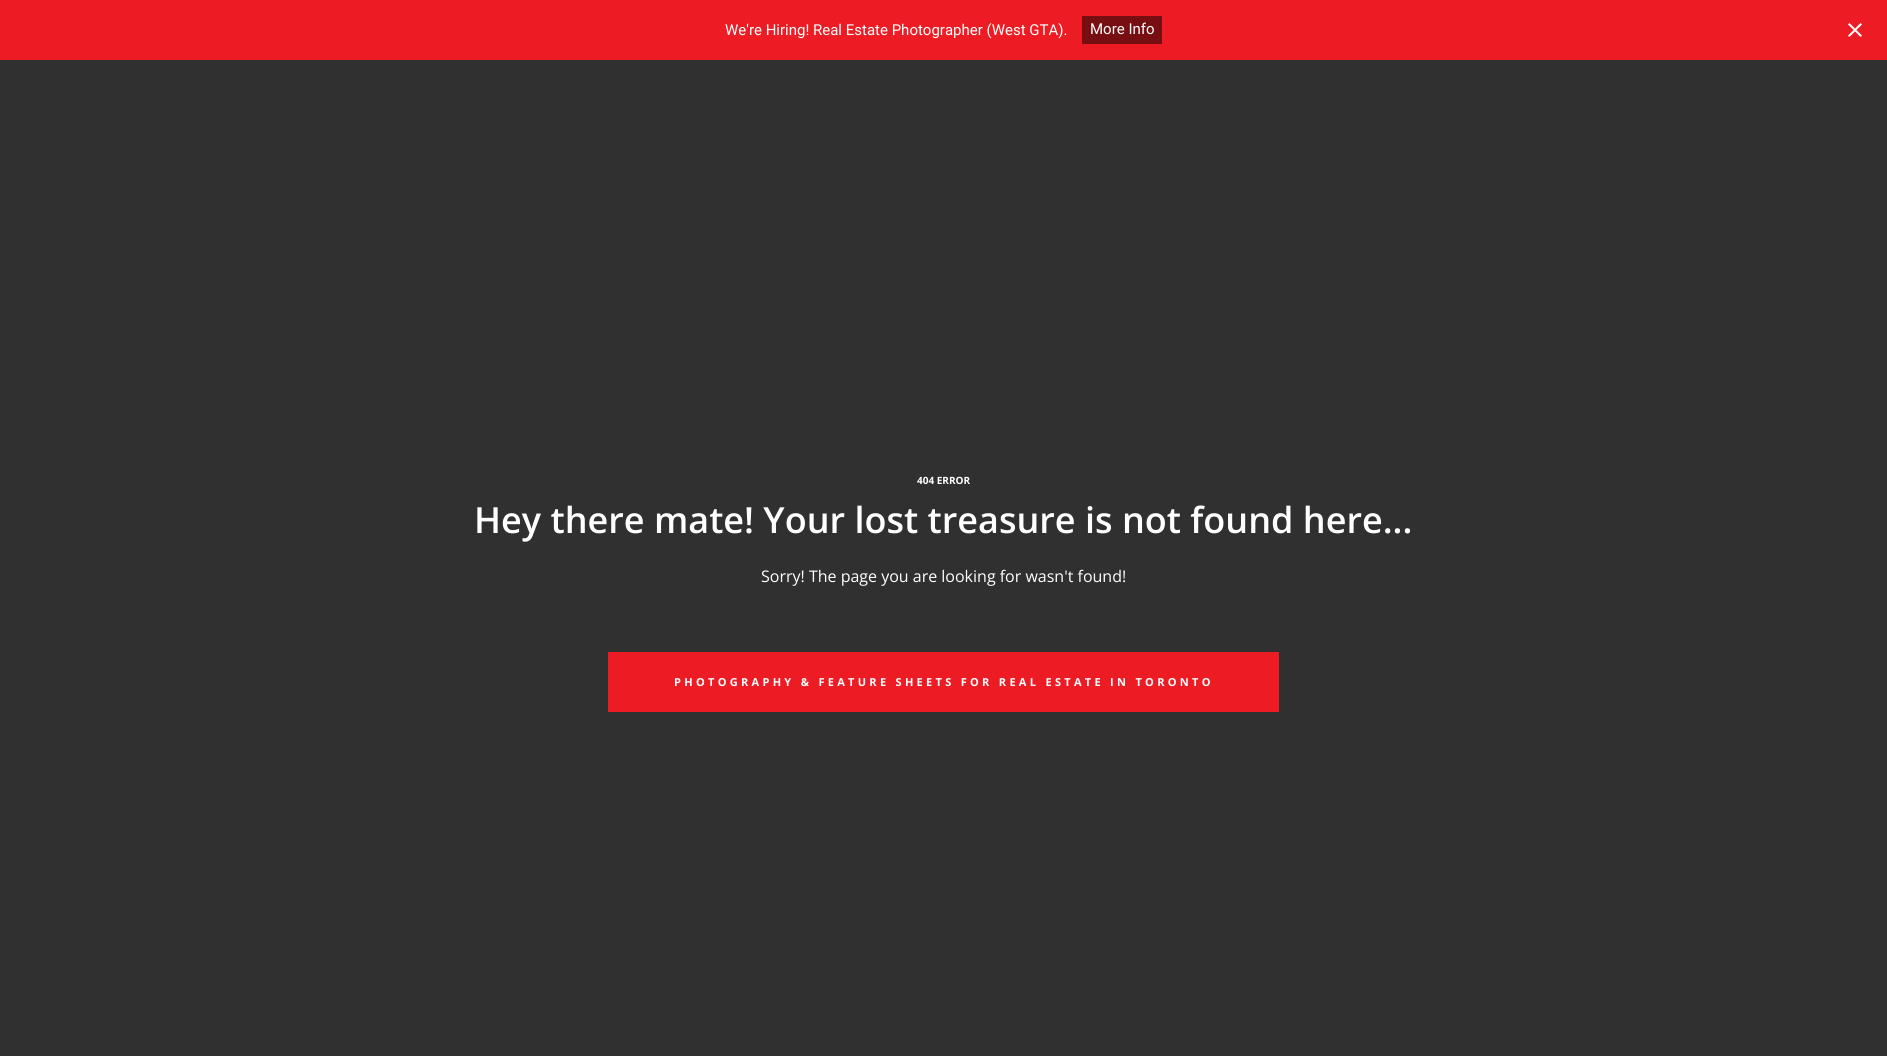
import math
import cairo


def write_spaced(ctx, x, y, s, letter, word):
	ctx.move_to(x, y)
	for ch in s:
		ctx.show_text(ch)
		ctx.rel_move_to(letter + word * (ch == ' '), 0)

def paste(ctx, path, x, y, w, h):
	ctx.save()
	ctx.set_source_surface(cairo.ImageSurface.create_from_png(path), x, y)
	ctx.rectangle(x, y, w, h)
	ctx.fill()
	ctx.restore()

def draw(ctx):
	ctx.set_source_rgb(0.188, 0.188, 0.188)
	ctx.paint()
	ctx.set_source_rgb(0.929, 0.11, 0.141)
	ctx.rectangle(0, 0, 1887, 60)
	ctx.fill()
	ctx.select_font_face('Roboto')
	ctx.set_font_size(15)
	ctx.set_source_rgb(1, 1, 1)
	ctx.move_to(725, 35)
	ctx.show_text('We\'re Hiring! Real Estate Photographer (West GTA).')
	ctx.set_source_rgb(0.467, 0.055, 0.071)
	ctx.rectangle(1082, 16, 80, 28)
	ctx.fill()
	ctx.set_source_rgb(1, 1, 1)
	ctx.move_to(1090, 34)
	ctx.show_text('More Info')
	paste(ctx, 'media/1.png', 1848, 23, 14, 14)
	ctx.select_font_face('Open Sans', cairo.FONT_SLANT_NORMAL, cairo.FONT_WEIGHT_BOLD)
	ctx.set_font_size(10)
	ctx.move_to(917, 484)
	ctx.show_text('404 ERROR')
	ctx.select_font_face('Open Sans SemiBold')
	ctx.set_font_size(36)
	ctx.move_to(474, 533)
	ctx.show_text('Hey there mate! Your lost treasure is not found here...')
	ctx.select_font_face('Open Sans')
	ctx.set_font_size(16)
	ctx.move_to(761, 582)
	ctx.show_text('Sorry! The page you are looking for wasn\'t found!')
	ctx.set_source_rgb(0.929, 0.11, 0.141)
	ctx.rectangle(608, 652, 671, 60)
	ctx.fill()
	ctx.select_font_face('Open Sans', cairo.FONT_SLANT_NORMAL, cairo.FONT_WEIGHT_BOLD)
	ctx.set_font_size(11)
	ctx.set_source_rgb(1, 1, 1)
	write_spaced(ctx, 674, 686, 'PHOTOGRAPHY & FEATURE SHEETS FOR REAL ESTATE IN TORONTO', 3.3, 0)


surface = cairo.ImageSurface(cairo.FORMAT_RGB24, 1887, 1056)
ctx = cairo.Context(surface)
options = cairo.FontOptions()
options.set_hint_metrics(cairo.HINT_METRICS_OFF)
options.set_hint_style(cairo.HINT_STYLE_NONE)
ctx.set_font_options(options)
ctx.set_miter_limit(4)
draw(ctx)
surface.write_to_png('image.png')
